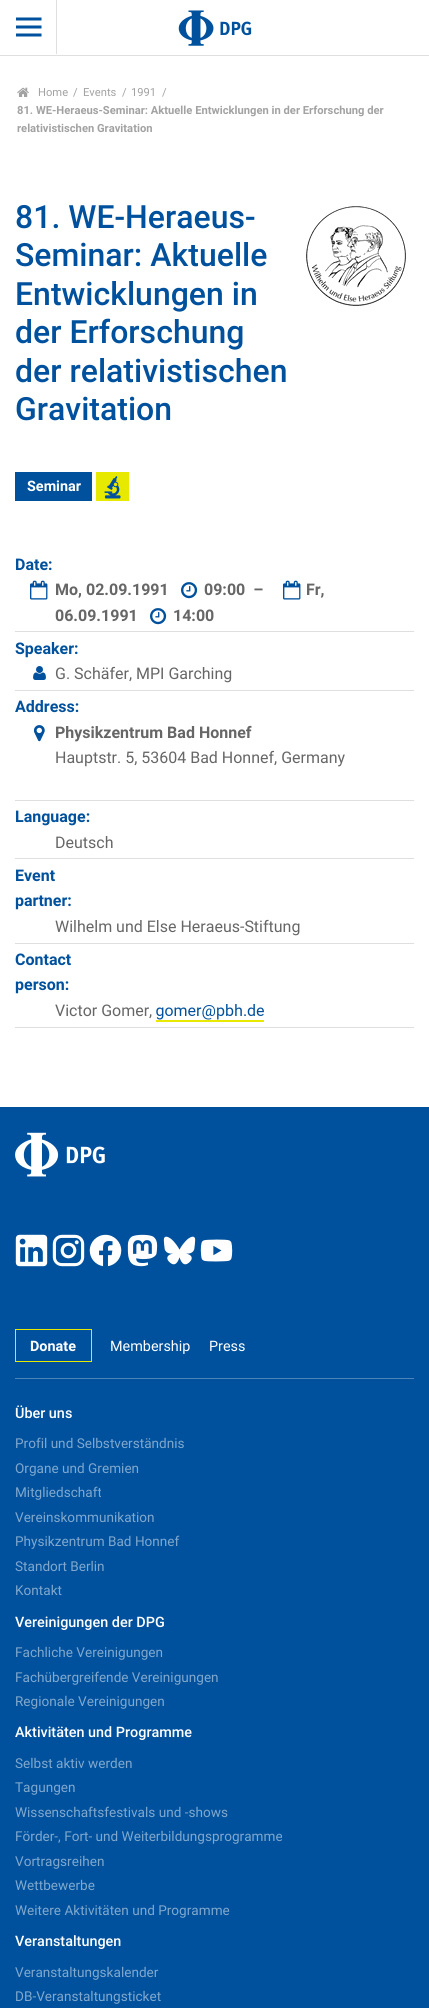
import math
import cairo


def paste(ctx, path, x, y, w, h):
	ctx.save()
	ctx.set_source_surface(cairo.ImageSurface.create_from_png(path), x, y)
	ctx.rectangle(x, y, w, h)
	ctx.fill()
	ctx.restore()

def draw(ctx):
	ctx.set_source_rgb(1, 1, 1)
	ctx.paint()
	ctx.set_source_rgb(0.875, 0.875, 0.875)
	ctx.rectangle(0, 55, 429, 1)
	ctx.fill()
	ctx.rectangle(56, 0, 1, 54)
	ctx.fill()
	ctx.save()
	ctx.rectangle(16, 14, 26, 26)
	ctx.clip()
	ctx.new_path()
	ctx.move_to(17, 19)
	ctx.line_to(40, 19)
	ctx.move_to(17, 27)
	ctx.line_to(40, 27)
	ctx.move_to(17, 35)
	ctx.line_to(40, 35)
	ctx.set_source_rgb(0, 0.318, 0.616)
	ctx.set_line_width(3)
	ctx.set_line_cap(cairo.LINE_CAP_SQUARE)
	ctx.stroke()
	ctx.restore()
	paste(ctx, 'media/1.png', 178, 10, 74, 36)
	paste(ctx, 'media/2.png', 17, 87, 12, 10)
	ctx.select_font_face('Roboto')
	ctx.set_font_size(11.2)
	ctx.set_source_rgb(0.635, 0.635, 0.635)
	for x, y, s in [
		(38, 96, 'Home'),
		(73, 96, '/'),
		(83, 96, 'Events'),
		(122, 96, '/'),
		(131, 96, '1991'),
		(162, 96, '/'),
	]:
		ctx.move_to(x, y)
		ctx.show_text(s)
	ctx.select_font_face('Roboto', cairo.FONT_SLANT_NORMAL, cairo.FONT_WEIGHT_BOLD)
	ctx.move_to(17, 114)
	ctx.show_text('81. WE-Heraeus-Seminar: Aktuelle Entwicklungen in der Erforschung der')
	ctx.move_to(17, 132)
	ctx.show_text('relativistischen Gravitation')
	ctx.select_font_face('Roboto Medium')
	ctx.set_font_size(32)
	ctx.set_source_rgb(0, 0.318, 0.616)
	for x, y, s in [
		(15, 228, '81. WE-Heraeus-'),
		(15, 266, 'Seminar: Aktuelle'),
		(15, 305, 'Entwicklungen in'),
		(15, 343, 'der Erforschung'),
		(15, 382, 'der relativistischen'),
		(15, 420, 'Gravitation'),
	]:
		ctx.move_to(x, y)
		ctx.show_text(s)
	paste(ctx, 'media/3.png', 306, 206, 100, 100)
	ctx.rectangle(15, 472, 77, 29)
	ctx.fill()
	ctx.select_font_face('Roboto', cairo.FONT_SLANT_NORMAL, cairo.FONT_WEIGHT_BOLD)
	ctx.set_font_size(14.4)
	ctx.set_source_rgb(1, 1, 1)
	ctx.move_to(27, 491)
	ctx.show_text('Seminar')
	ctx.set_source_rgb(0.91, 0.914, 0)
	ctx.rectangle(96, 472, 33, 29)
	ctx.fill()
	paste(ctx, 'media/4.png', 104, 476, 17, 23)
	ctx.set_source_rgb(0.875, 0.875, 0.875)
	ctx.rectangle(15, 631, 399, 1)
	ctx.fill()
	ctx.set_font_size(16)
	ctx.set_source_rgb(0, 0.318, 0.616)
	ctx.move_to(15, 570)
	ctx.show_text('Date:')
	paste(ctx, 'media/5.png', 30, 580, 18, 20)
	ctx.set_source_rgb(0.4, 0.4, 0.4)
	ctx.move_to(55, 595)
	ctx.show_text('Mo, 02.09.1991')
	paste(ctx, 'media/6.png', 181, 582, 17, 17)
	ctx.move_to(204, 595)
	ctx.show_text('09:00  –')
	paste(ctx, 'media/5.png', 283, 580, 18, 20)
	ctx.move_to(306, 595)
	ctx.show_text('Fr,')
	ctx.move_to(55, 621)
	ctx.show_text('06.09.1991')
	paste(ctx, 'media/6.png', 150, 608, 17, 17)
	ctx.move_to(173, 621)
	ctx.show_text('14:00')
	ctx.set_source_rgb(0.875, 0.875, 0.875)
	ctx.rectangle(15, 690, 399, 1)
	ctx.fill()
	ctx.set_source_rgb(0, 0.318, 0.616)
	ctx.move_to(15, 654)
	ctx.show_text('Speaker:')
	paste(ctx, 'media/7.png', 33, 666, 13, 14)
	ctx.select_font_face('Roboto')
	ctx.set_source_rgb(0.4, 0.4, 0.4)
	ctx.move_to(55, 679)
	ctx.show_text('G. Schäfer, MPI Garching')
	ctx.set_source_rgb(0.875, 0.875, 0.875)
	ctx.rectangle(15, 800, 399, 1)
	ctx.fill()
	ctx.select_font_face('Roboto', cairo.FONT_SLANT_NORMAL, cairo.FONT_WEIGHT_BOLD)
	ctx.set_source_rgb(0, 0.318, 0.616)
	ctx.move_to(15, 712)
	ctx.show_text('Address:')
	paste(ctx, 'media/8.png', 33, 725, 12, 17)
	ctx.set_source_rgb(0.4, 0.4, 0.4)
	ctx.move_to(55, 738)
	ctx.show_text('Physikzentrum Bad Honnef')
	ctx.select_font_face('Roboto')
	ctx.move_to(55, 763)
	ctx.show_text('Hauptstr. 5, 53604 Bad Honnef, Germany')
	ctx.set_source_rgb(0.875, 0.875, 0.875)
	ctx.rectangle(15, 858, 399, 1)
	ctx.fill()
	ctx.select_font_face('Roboto', cairo.FONT_SLANT_NORMAL, cairo.FONT_WEIGHT_BOLD)
	ctx.set_source_rgb(0, 0.318, 0.616)
	ctx.move_to(15, 822)
	ctx.show_text('Language:')
	ctx.select_font_face('Roboto')
	ctx.set_source_rgb(0.4, 0.4, 0.4)
	ctx.move_to(55, 848)
	ctx.show_text('Deutsch')
	ctx.set_source_rgb(0.875, 0.875, 0.875)
	ctx.rectangle(15, 943, 399, 1)
	ctx.fill()
	ctx.select_font_face('Roboto', cairo.FONT_SLANT_NORMAL, cairo.FONT_WEIGHT_BOLD)
	ctx.set_source_rgb(0, 0.318, 0.616)
	ctx.move_to(15, 881)
	ctx.show_text('Event')
	ctx.move_to(15, 906)
	ctx.show_text('partner:')
	ctx.select_font_face('Roboto')
	ctx.set_source_rgb(0.4, 0.4, 0.4)
	ctx.move_to(55, 932)
	ctx.show_text('Wilhelm und Else Heraeus-Stiftung')
	ctx.set_source_rgb(0.875, 0.875, 0.875)
	ctx.rectangle(15, 1027, 399, 1)
	ctx.fill()
	ctx.select_font_face('Roboto', cairo.FONT_SLANT_NORMAL, cairo.FONT_WEIGHT_BOLD)
	ctx.set_source_rgb(0, 0.318, 0.616)
	ctx.move_to(15, 965)
	ctx.show_text('Contact')
	ctx.move_to(15, 990)
	ctx.show_text('person:')
	ctx.select_font_face('Roboto')
	ctx.set_source_rgb(0.4, 0.4, 0.4)
	ctx.move_to(55, 1016)
	ctx.show_text('Victor Gomer,')
	paste(ctx, 'media/9.png', 156, 1004, 108, 16)
	ctx.set_source_rgb(0.91, 0.914, 0)
	ctx.rectangle(156, 1020, 108, 2)
	ctx.fill()
	ctx.set_source_rgb(0, 0.318, 0.616)
	ctx.rectangle(0, 1107, 429, 901)
	ctx.fill()
	ctx.set_source_rgb(0.302, 0.522, 0.729)
	ctx.rectangle(15, 1378, 399, 1)
	ctx.fill()
	paste(ctx, 'media/10.png', 15, 1132, 90, 45)
	paste(ctx, 'media/11.png', 15, 1234, 33, 33)
	paste(ctx, 'media/12.png', 52, 1234, 33, 33)
	paste(ctx, 'media/13.png', 89, 1234, 33, 33)
	paste(ctx, 'media/14.png', 127, 1234, 31, 33)
	paste(ctx, 'media/15.png', 163, 1236, 33, 29)
	paste(ctx, 'media/16.png', 200, 1239, 33, 23)
	ctx.rectangle(15.5, 1329.5, 76, 32)
	ctx.set_source_rgb(0.91, 0.914, 0)
	ctx.set_line_width(1)
	ctx.stroke()
	ctx.select_font_face('Roboto', cairo.FONT_SLANT_NORMAL, cairo.FONT_WEIGHT_BOLD)
	ctx.set_font_size(14.4)
	ctx.set_source_rgb(1, 1, 1)
	ctx.move_to(30, 1351)
	ctx.show_text('Donate')
	ctx.select_font_face('Roboto')
	ctx.move_to(110, 1351)
	ctx.show_text('Membership')
	ctx.move_to(209, 1351)
	ctx.show_text('Press')
	ctx.select_font_face('Roboto Medium')
	ctx.move_to(15, 1418)
	ctx.show_text('Über uns')
	ctx.select_font_face('Roboto')
	ctx.set_font_size(13.6)
	ctx.set_source_rgb(0.502, 0.659, 0.808)
	for x, y, s in [
		(15, 1448, 'Profil und Selbstverständnis'),
		(15, 1473, 'Organe und Gremien'),
		(15, 1497, 'Mitgliedschaft'),
		(15, 1522, 'Vereinskommunikation'),
		(15, 1546, 'Physikzentrum Bad Honnef'),
		(15, 1571, 'Standort Berlin'),
		(15, 1595, 'Kontakt'),
	]:
		ctx.move_to(x, y)
		ctx.show_text(s)
	ctx.select_font_face('Roboto Medium')
	ctx.set_font_size(14.4)
	ctx.set_source_rgb(1, 1, 1)
	ctx.move_to(15, 1627)
	ctx.show_text('Vereinigungen der DPG')
	ctx.select_font_face('Roboto')
	ctx.set_font_size(13.6)
	ctx.set_source_rgb(0.502, 0.659, 0.808)
	for x, y, s in [
		(15, 1657, 'Fachliche Vereinigungen'),
		(15, 1682, 'Fachübergreifende Vereinigungen'),
		(15, 1706, 'Regionale Vereinigungen'),
	]:
		ctx.move_to(x, y)
		ctx.show_text(s)
	ctx.select_font_face('Roboto Medium')
	ctx.set_font_size(14.4)
	ctx.set_source_rgb(1, 1, 1)
	ctx.move_to(15, 1737)
	ctx.show_text('Aktivitäten und Programme')
	ctx.select_font_face('Roboto')
	ctx.set_font_size(13.6)
	ctx.set_source_rgb(0.502, 0.659, 0.808)
	for x, y, s in [
		(15, 1768, 'Selbst aktiv werden'),
		(15, 1792, 'Tagungen'),
		(15, 1817, 'Wissenschaftsfestivals und -shows'),
		(15, 1841, 'Förder-, Fort- und Weiterbildungsprogramme'),
		(15, 1866, 'Vortragsreihen'),
		(15, 1890, 'Wettbewerbe'),
		(15, 1915, 'Weitere Aktivitäten und Programme'),
	]:
		ctx.move_to(x, y)
		ctx.show_text(s)
	ctx.select_font_face('Roboto Medium')
	ctx.set_font_size(14.4)
	ctx.set_source_rgb(1, 1, 1)
	ctx.move_to(15, 1946)
	ctx.show_text('Veranstaltungen')
	ctx.select_font_face('Roboto')
	ctx.set_font_size(13.6)
	ctx.set_source_rgb(0.502, 0.659, 0.808)
	ctx.move_to(15, 1977)
	ctx.show_text('Veranstaltungskalender')
	ctx.move_to(15, 2001)
	ctx.show_text('DB-Veranstaltungsticket')


surface = cairo.ImageSurface(cairo.FORMAT_RGB24, 429, 2008)
ctx = cairo.Context(surface)
options = cairo.FontOptions()
options.set_hint_metrics(cairo.HINT_METRICS_OFF)
options.set_hint_style(cairo.HINT_STYLE_NONE)
ctx.set_font_options(options)
ctx.set_miter_limit(4)
draw(ctx)
surface.write_to_png('image.png')
